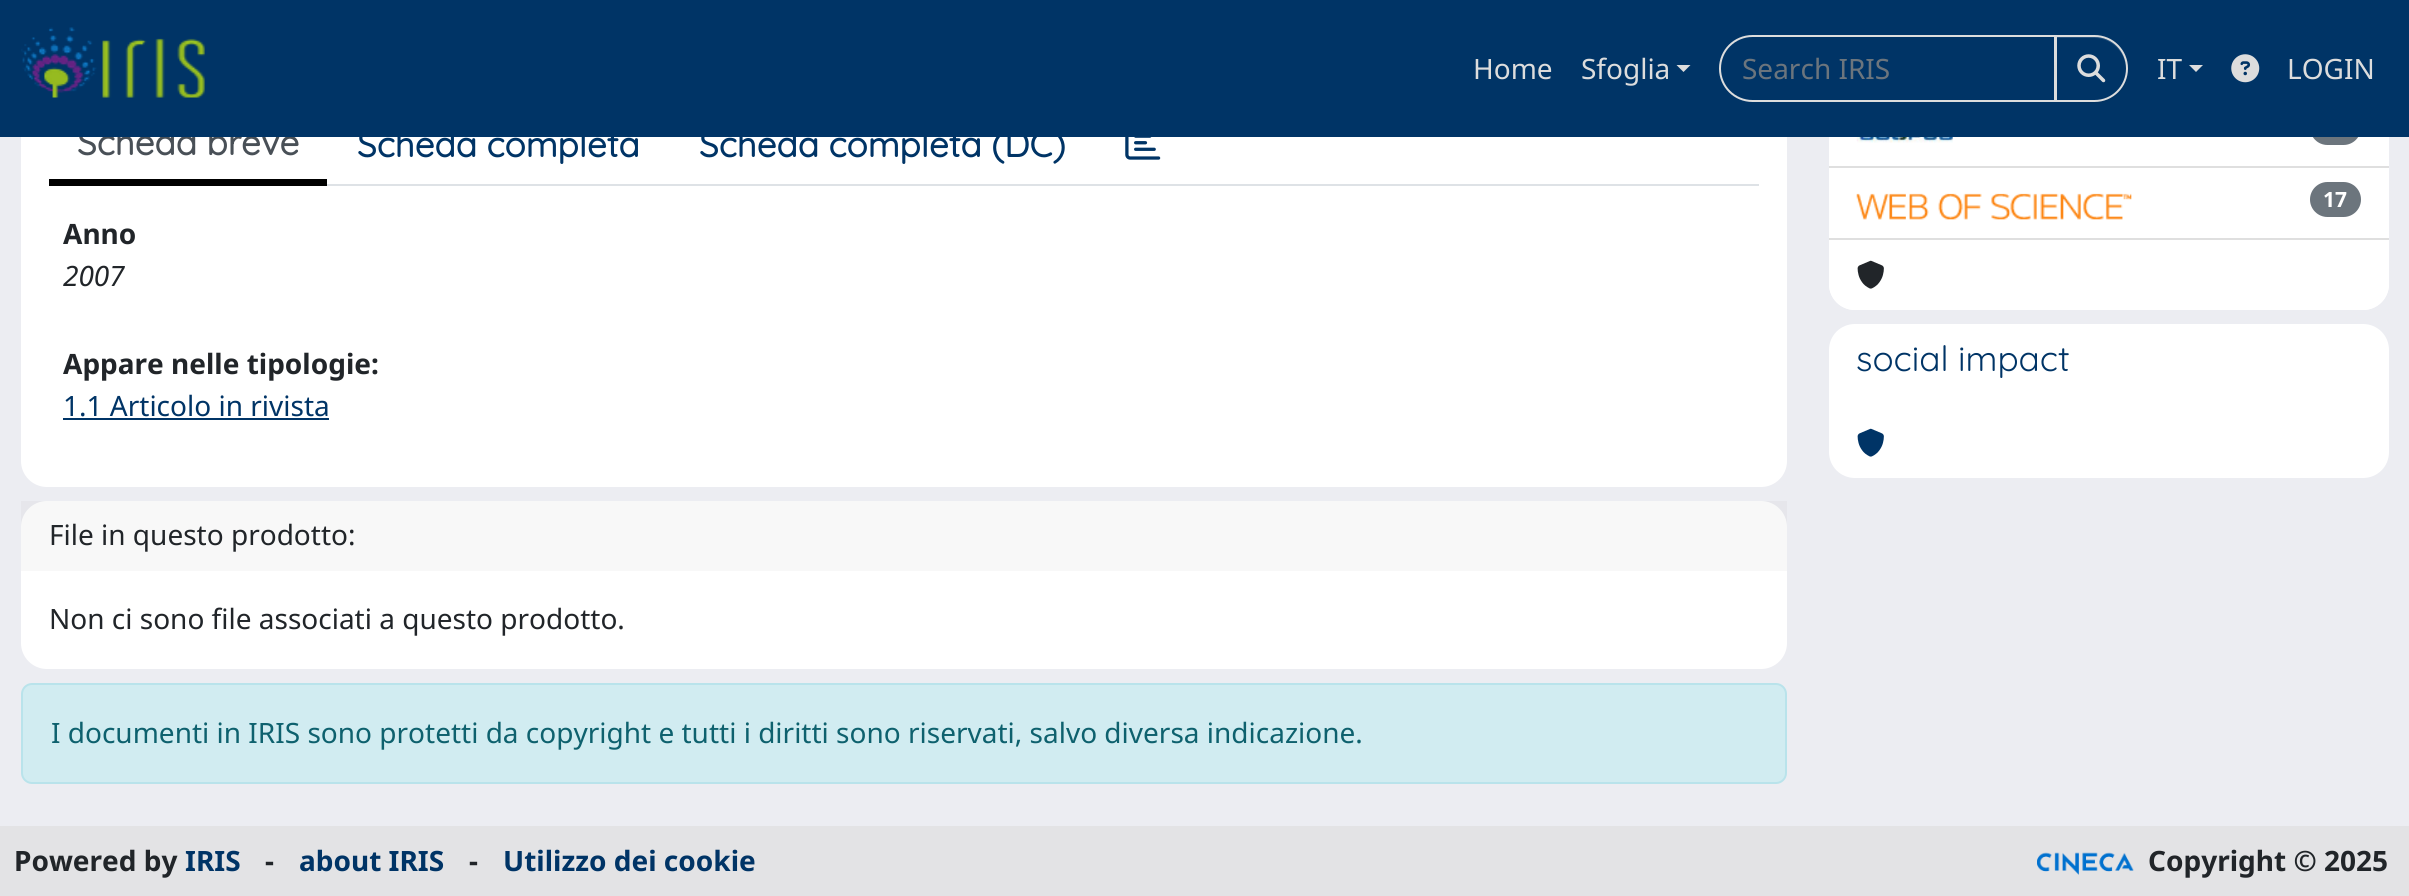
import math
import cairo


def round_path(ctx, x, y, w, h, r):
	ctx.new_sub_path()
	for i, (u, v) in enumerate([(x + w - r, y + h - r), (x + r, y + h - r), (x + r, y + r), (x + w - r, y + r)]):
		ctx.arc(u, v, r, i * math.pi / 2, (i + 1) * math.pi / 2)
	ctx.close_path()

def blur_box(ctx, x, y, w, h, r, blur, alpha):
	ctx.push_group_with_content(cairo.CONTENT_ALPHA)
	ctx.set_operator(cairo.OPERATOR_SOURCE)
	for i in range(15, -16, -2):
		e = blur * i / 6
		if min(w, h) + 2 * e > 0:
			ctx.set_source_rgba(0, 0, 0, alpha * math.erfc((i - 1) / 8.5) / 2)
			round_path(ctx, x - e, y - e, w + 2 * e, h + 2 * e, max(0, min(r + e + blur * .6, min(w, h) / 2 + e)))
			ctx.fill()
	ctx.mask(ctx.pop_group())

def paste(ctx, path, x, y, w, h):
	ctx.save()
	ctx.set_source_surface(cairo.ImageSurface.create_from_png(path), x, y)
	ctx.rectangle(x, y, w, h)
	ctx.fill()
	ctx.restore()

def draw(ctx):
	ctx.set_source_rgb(0.925, 0.929, 0.949)
	ctx.paint()
	ctx.set_source_rgb(1, 1, 1)
	round_path(ctx, 21, -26, 1766, 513, 26)
	ctx.fill()
	ctx.select_font_face('Quicksand', cairo.FONT_SLANT_NORMAL, cairo.FONT_WEIGHT_BOLD)
	ctx.set_font_size(35)
	ctx.set_source_rgb(0.286, 0.314, 0.341)
	ctx.move_to(77, 155)
	ctx.show_text('Scheda breve')
	ctx.set_source_rgb(1, 1, 1)
	round_path(ctx, 1829, -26, 560, 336, 26)
	ctx.fill()
	ctx.set_source_rgb(0.424, 0.459, 0.49)
	round_path(ctx, 2310, 110, 51, 35, 17.5)
	ctx.fill()
	ctx.set_source_rgb(0, 0.204, 0.4)
	ctx.rectangle(0, 0, 2409, 137)
	ctx.fill()
	paste(ctx, 'media/1.png', 21, 27, 184, 71)
	ctx.select_font_face('Noto Sans')
	ctx.set_font_size(28)
	ctx.set_source_rgb(0.867, 0.867, 0.867)
	ctx.move_to(1473, 79)
	ctx.show_text('Home')
	ctx.move_to(1581, 79)
	ctx.show_text('Sfoglia')
	ctx.new_path()
	ctx.move_to(1676.5, 65)
	ctx.line_to(1690.5, 65)
	ctx.line_to(1683.5, 72)
	ctx.close_path()
	ctx.fill()
	ctx.new_path()
	ctx.move_to(1752.5, 36)
	ctx.line_to(2055, 36)
	ctx.line_to(2055, 101)
	ctx.line_to(1752.5, 101)
	ctx.curve_to(1734.5, 101, 1720, 86.5, 1720, 68.5)
	ctx.curve_to(1720, 50.5, 1734.5, 36, 1752.5, 36)
	ctx.close_path()
	ctx.stroke()
	ctx.set_source_rgb(0.424, 0.459, 0.49)
	ctx.move_to(1742, 79)
	ctx.show_text('Search IRIS')
	ctx.set_source_rgb(0, 0, 0)
	blur_box(ctx, 2055, 37, 73, 66, 33, 1, 0.07)
	ctx.set_source_rgb(0, 0.204, 0.4)
	ctx.new_path()
	ctx.move_to(2055, 35)
	ctx.line_to(2094.5, 35)
	ctx.curve_to(2113, 35, 2128, 50, 2128, 68.5)
	ctx.curve_to(2128, 87, 2113, 102, 2094.5, 102)
	ctx.line_to(2055, 102)
	ctx.close_path()
	ctx.fill()
	ctx.set_source_rgb(0.149, 0.322, 0.49)
	ctx.new_path()
	ctx.move_to(2056, 38)
	ctx.line_to(2095, 38)
	ctx.curve_to(2112, 38, 2126, 53, 2126, 69)
	ctx.line_to(2126, 68)
	ctx.curve_to(2126, 51, 2112, 37, 2094, 37)
	ctx.line_to(2056, 37)
	ctx.close_path()
	ctx.fill()
	ctx.new_path()
	ctx.move_to(2056, 36)
	ctx.line_to(2094.5, 36)
	ctx.curve_to(2112.5, 36, 2127, 50.5, 2127, 68.5)
	ctx.curve_to(2127, 86.5, 2112.5, 101, 2094.5, 101)
	ctx.line_to(2056, 101)
	ctx.close_path()
	ctx.set_source_rgb(0.867, 0.867, 0.867)
	ctx.stroke()
	paste(ctx, 'media/2.png', 2077, 54, 29, 29)
	ctx.move_to(2157, 79)
	ctx.show_text('IT')
	ctx.new_path()
	ctx.move_to(2189, 65)
	ctx.line_to(2203, 65)
	ctx.line_to(2196, 72)
	ctx.close_path()
	ctx.fill()
	paste(ctx, 'media/3.png', 2231, 54, 29, 29)
	ctx.move_to(2287, 79)
	ctx.show_text('LOGIN')
	ctx.set_source_rgb(0.871, 0.886, 0.902)
	ctx.rectangle(327, 184, 1432, 2)
	ctx.fill()
	ctx.set_source_rgb(0, 0, 0)
	ctx.rectangle(49, 179, 278, 7)
	ctx.fill()
	ctx.select_font_face('Quicksand', cairo.FONT_SLANT_NORMAL, cairo.FONT_WEIGHT_BOLD)
	ctx.set_font_size(35)
	ctx.set_source_rgb(0, 0.204, 0.4)
	ctx.move_to(357, 157)
	ctx.show_text('Scheda completa')
	ctx.move_to(699, 157)
	ctx.show_text('Scheda completa (DC)')
	paste(ctx, 'media/4.png', 1125, 137, 36, 23)
	ctx.select_font_face('Noto Sans', cairo.FONT_SLANT_NORMAL, cairo.FONT_WEIGHT_BOLD)
	ctx.set_font_size(28)
	ctx.set_source_rgb(0.129, 0.145, 0.161)
	ctx.move_to(63, 244)
	ctx.show_text('Anno')
	ctx.select_font_face('Noto Sans', cairo.FONT_SLANT_ITALIC)
	ctx.move_to(63, 286)
	ctx.show_text('2007')
	ctx.select_font_face('Noto Sans', cairo.FONT_SLANT_NORMAL, cairo.FONT_WEIGHT_BOLD)
	ctx.move_to(63, 374)
	ctx.show_text('Appare nelle tipologie:')
	ctx.select_font_face('Noto Sans')
	ctx.set_source_rgb(0, 0.204, 0.4)
	ctx.move_to(63, 416)
	ctx.show_text('1.1 Articolo in rivista')
	ctx.rectangle(63, 418, 266, 2)
	ctx.fill()
	ctx.set_source_rgb(1, 1, 1)
	round_path(ctx, 21, 501, 1766, 168, 26)
	ctx.fill()
	ctx.set_source_rgba(0, 0, 0, 0.03)
	ctx.rectangle(21, 501, 1766, 70)
	ctx.fill()
	ctx.set_source_rgb(0.129, 0.145, 0.161)
	ctx.move_to(49, 545)
	ctx.show_text('File in questo prodotto:')
	ctx.move_to(49, 629)
	ctx.show_text('Non ci sono file associati a questo prodotto.')
	ctx.set_source_rgb(0.82, 0.925, 0.945)
	round_path(ctx, 22, 684, 1764, 99, 10)
	ctx.fill_preserve()
	ctx.set_source_rgb(0.725, 0.89, 0.918)
	ctx.stroke()
	ctx.set_source_rgb(0.055, 0.38, 0.431)
	ctx.move_to(51, 743)
	ctx.show_text('I documenti in IRIS sono protetti da copyright e tutti i diritti sono riservati, salvo diversa indicazione.')
	ctx.set_source_rgb(0.875, 0.875, 0.875)
	ctx.rectangle(1829, 166, 560, 2)
	ctx.fill()
	paste(ctx, 'media/5.png', 1856, 137, 97, 6)
	ctx.rectangle(1829, 238, 560, 2)
	ctx.fill()
	paste(ctx, 'media/6.png', 1856, 193, 276, 27)
	ctx.set_source_rgb(0.424, 0.459, 0.49)
	round_path(ctx, 2310, 182, 51, 35, 17.5)
	ctx.fill()
	ctx.select_font_face('Noto Sans', cairo.FONT_SLANT_NORMAL, cairo.FONT_WEIGHT_BOLD)
	ctx.set_font_size(21)
	ctx.set_source_rgb(1, 1, 1)
	ctx.move_to(2323, 207)
	ctx.show_text('17')
	ctx.new_path()
	ctx.move_to(1829, 240)
	ctx.line_to(2389, 240)
	ctx.line_to(2389, 284)
	ctx.curve_to(2389, 298.5, 2377.5, 310, 2363, 310)
	ctx.line_to(1855, 310)
	ctx.curve_to(1840.5, 310, 1829, 298.5, 1829, 284)
	ctx.close_path()
	ctx.fill()
	paste(ctx, 'media/7.png', 1857, 260, 27, 29)
	ctx.new_path()
	ctx.move_to(1855, 324)
	ctx.line_to(2363, 324)
	ctx.curve_to(2377.5, 324, 2389, 335.5, 2389, 350)
	ctx.line_to(2389, 408)
	ctx.line_to(1829, 408)
	ctx.line_to(1829, 350)
	ctx.curve_to(1829, 335.5, 1840.5, 324, 1855, 324)
	ctx.close_path()
	ctx.fill()
	ctx.select_font_face('Quicksand Light')
	ctx.set_font_size(35)
	ctx.set_source_rgb(0, 0.204, 0.4)
	ctx.move_to(1856, 371)
	ctx.show_text('social impact')
	ctx.set_source_rgb(1, 1, 1)
	ctx.new_path()
	ctx.move_to(1829, 408)
	ctx.line_to(2389, 408)
	ctx.line_to(2389, 452)
	ctx.curve_to(2389, 466.5, 2377.5, 478, 2363, 478)
	ctx.line_to(1855, 478)
	ctx.curve_to(1840.5, 478, 1829, 466.5, 1829, 452)
	ctx.close_path()
	ctx.fill()
	paste(ctx, 'media/8.png', 1857, 428, 27, 29)
	ctx.set_source_rgb(0.89, 0.89, 0.898)
	ctx.rectangle(0, 826, 2409, 70)
	ctx.fill()
	ctx.select_font_face('Noto Sans', cairo.FONT_SLANT_NORMAL, cairo.FONT_WEIGHT_BOLD)
	ctx.set_font_size(28)
	ctx.set_source_rgb(0.129, 0.145, 0.161)
	ctx.move_to(14, 871)
	ctx.show_text('Powered by')
	ctx.set_source_rgb(0, 0.204, 0.4)
	ctx.move_to(185, 871)
	ctx.show_text('IRIS')
	ctx.set_source_rgb(0.129, 0.145, 0.161)
	ctx.move_to(265, 871)
	ctx.show_text('-')
	ctx.set_source_rgb(0, 0.204, 0.4)
	ctx.move_to(299, 871)
	ctx.show_text('about IRIS')
	ctx.set_source_rgb(0.129, 0.145, 0.161)
	ctx.move_to(469, 871)
	ctx.show_text('-')
	ctx.set_source_rgb(0, 0.204, 0.4)
	ctx.move_to(503, 871)
	ctx.show_text('Utilizzo dei cookie')
	paste(ctx, 'media/9.png', 2037, 852, 97, 23)
	ctx.set_source_rgb(0.129, 0.145, 0.161)
	ctx.move_to(2148, 871)
	ctx.show_text('Copyright © 2025')


surface = cairo.ImageSurface(cairo.FORMAT_RGB24, 2409, 896)
ctx = cairo.Context(surface)
options = cairo.FontOptions()
options.set_hint_metrics(cairo.HINT_METRICS_OFF)
options.set_hint_style(cairo.HINT_STYLE_NONE)
ctx.set_font_options(options)
ctx.set_miter_limit(4)
draw(ctx)
surface.write_to_png('image.png')
